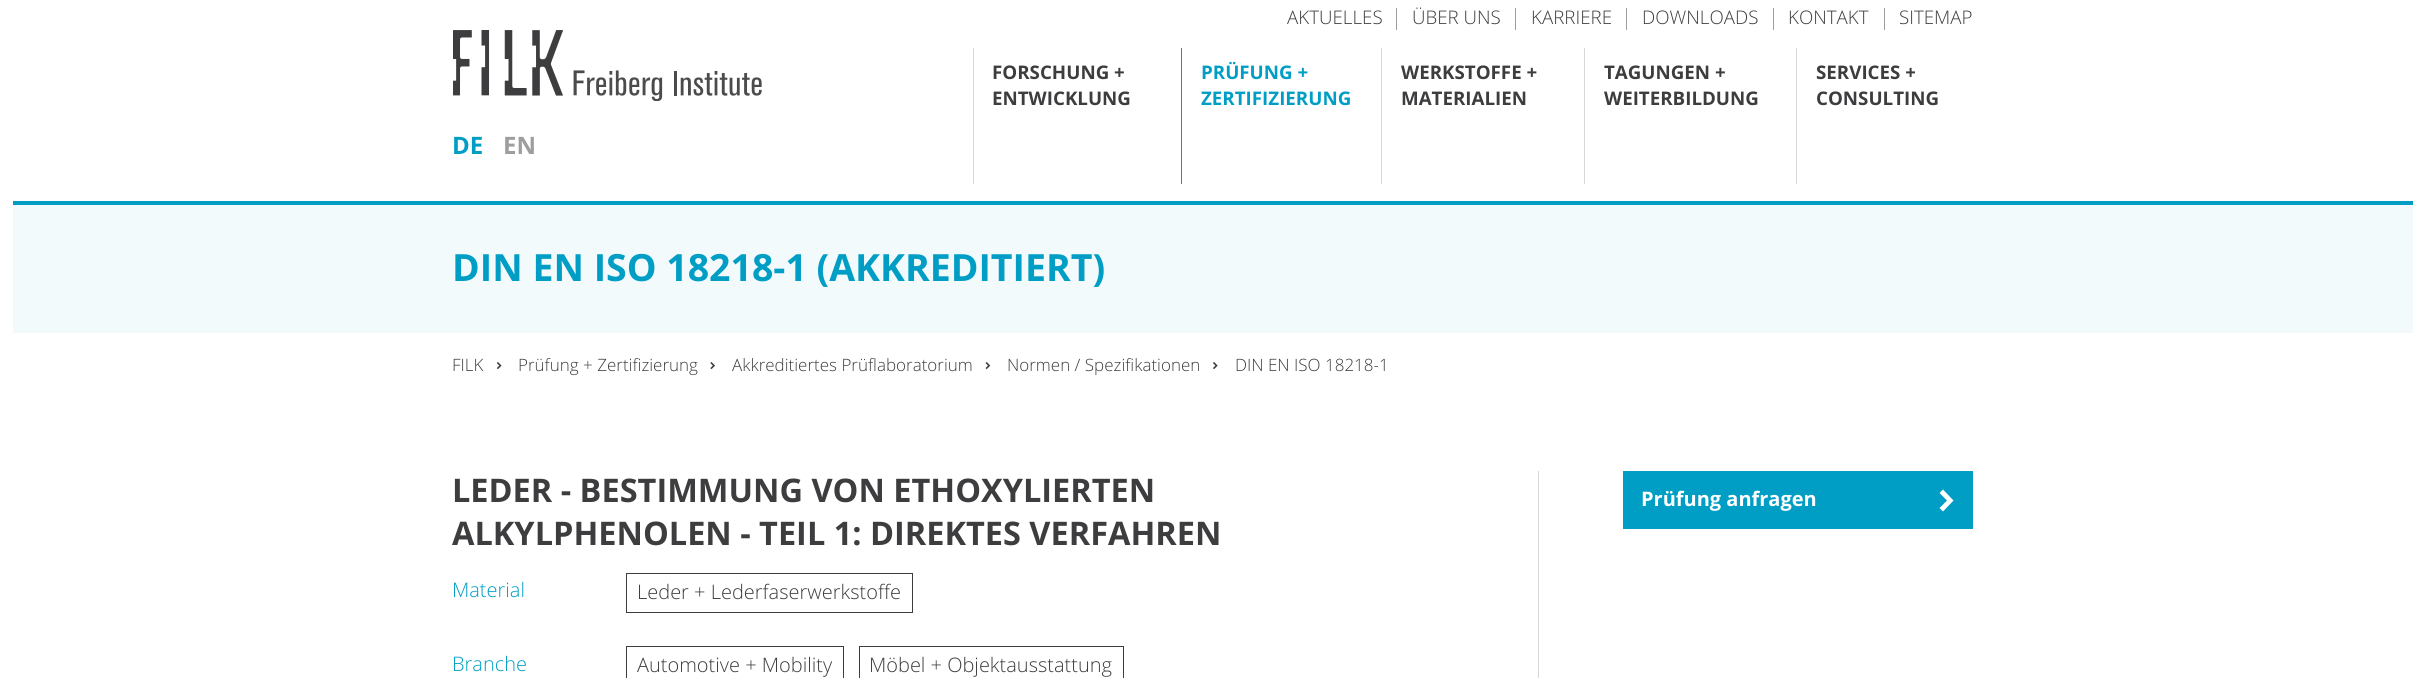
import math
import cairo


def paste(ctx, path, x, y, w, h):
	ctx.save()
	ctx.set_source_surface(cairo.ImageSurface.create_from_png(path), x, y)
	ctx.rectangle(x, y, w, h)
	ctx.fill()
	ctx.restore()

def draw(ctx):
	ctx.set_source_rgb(1, 1, 1)
	ctx.paint()
	ctx.select_font_face('Open Sans Light')
	ctx.set_font_size(18.75)
	ctx.set_source_rgb(0.239, 0.239, 0.247)
	ctx.move_to(1287, 24)
	ctx.show_text('AKTUELLES')
	ctx.set_source_rgb(0.62, 0.62, 0.624)
	ctx.rectangle(1396, 8, 1, 22)
	ctx.fill()
	ctx.set_source_rgb(0.239, 0.239, 0.247)
	ctx.move_to(1412, 24)
	ctx.show_text('ÜBER UNS')
	ctx.set_source_rgb(0.62, 0.62, 0.624)
	ctx.rectangle(1515, 8, 1, 22)
	ctx.fill()
	ctx.set_source_rgb(0.239, 0.239, 0.247)
	ctx.move_to(1531, 24)
	ctx.show_text('KARRIERE')
	ctx.set_source_rgb(0.62, 0.62, 0.624)
	ctx.rectangle(1626, 8, 1, 22)
	ctx.fill()
	ctx.set_source_rgb(0.239, 0.239, 0.247)
	ctx.move_to(1642, 24)
	ctx.show_text('DOWNLOADS')
	ctx.set_source_rgb(0.62, 0.62, 0.624)
	ctx.rectangle(1773, 8, 1, 22)
	ctx.fill()
	ctx.set_source_rgb(0.239, 0.239, 0.247)
	ctx.move_to(1788, 24)
	ctx.show_text('KONTAKT')
	ctx.set_source_rgb(0.62, 0.62, 0.624)
	ctx.rectangle(1884, 8, 1, 22)
	ctx.fill()
	ctx.set_source_rgb(0.239, 0.239, 0.247)
	ctx.move_to(1899, 24)
	ctx.show_text('SITEMAP')
	ctx.set_source_rgb(0.847, 0.847, 0.847)
	ctx.rectangle(973, 48, 1, 136)
	ctx.fill()
	ctx.select_font_face('Open Sans', cairo.FONT_SLANT_NORMAL, cairo.FONT_WEIGHT_BOLD)
	ctx.set_source_rgb(0.239, 0.239, 0.247)
	ctx.move_to(992, 79)
	ctx.show_text('FORSCHUNG +')
	ctx.move_to(992, 105)
	ctx.show_text('ENTWICKLUNG')
	ctx.set_source_rgb(0, 0.62, 0.773)
	ctx.rectangle(1181, 48, 1, 136)
	ctx.fill()
	ctx.move_to(1201, 79)
	ctx.show_text('PRÜFUNG +')
	ctx.move_to(1201, 105)
	ctx.show_text('ZERTIFIZIERUNG')
	ctx.set_source_rgb(0.847, 0.847, 0.847)
	ctx.rectangle(1381, 48, 1, 136)
	ctx.fill()
	ctx.set_source_rgb(0.239, 0.239, 0.247)
	ctx.move_to(1401, 79)
	ctx.show_text('WERKSTOFFE +')
	ctx.move_to(1401, 105)
	ctx.show_text('MATERIALIEN')
	ctx.set_source_rgb(0.847, 0.847, 0.847)
	ctx.rectangle(1584, 48, 1, 136)
	ctx.fill()
	ctx.set_source_rgb(0.239, 0.239, 0.247)
	ctx.move_to(1604, 79)
	ctx.show_text('TAGUNGEN +')
	ctx.move_to(1604, 105)
	ctx.show_text('WEITERBILDUNG')
	ctx.set_source_rgb(0.847, 0.847, 0.847)
	ctx.rectangle(1796, 48, 1, 136)
	ctx.fill()
	ctx.set_source_rgb(0.239, 0.239, 0.247)
	ctx.move_to(1816, 79)
	ctx.show_text('SERVICES +')
	ctx.move_to(1816, 105)
	ctx.show_text('CONSULTING')
	paste(ctx, 'media/1.png', 453, 30, 309, 71)
	ctx.set_font_size(24)
	ctx.set_source_rgb(0, 0.62, 0.773)
	ctx.move_to(452, 154)
	ctx.show_text('DE')
	ctx.set_source_rgb(0.62, 0.62, 0.624)
	ctx.move_to(503, 154)
	ctx.show_text('EN')
	ctx.set_source_rgb(0, 0.62, 0.773)
	ctx.rectangle(13, 201, 2400, 4)
	ctx.fill()
	ctx.set_source_rgb(0.949, 0.98, 0.988)
	ctx.rectangle(13, 205, 2400, 128)
	ctx.fill()
	ctx.set_font_size(37.5)
	ctx.set_source_rgb(0, 0.62, 0.773)
	ctx.move_to(452, 281)
	ctx.show_text('DIN EN ISO 18218-1 (AKKREDITIERT)')
	ctx.select_font_face('Open Sans Light')
	ctx.set_font_size(17)
	ctx.set_source_rgb(0.239, 0.239, 0.247)
	ctx.move_to(452, 371)
	ctx.show_text('FILK')
	paste(ctx, 'media/2.png', 496, 362, 6, 8)
	ctx.move_to(518, 371)
	ctx.show_text('Prüfung + Zertifizierung')
	paste(ctx, 'media/3.png', 710, 362, 5, 8)
	ctx.move_to(732, 371)
	ctx.show_text('Akkreditiertes Prüflaboratorium')
	paste(ctx, 'media/4.png', 985, 362, 6, 8)
	ctx.move_to(1007, 371)
	ctx.show_text('Normen / Spezifikationen')
	paste(ctx, 'media/5.png', 1213, 362, 5, 8)
	ctx.move_to(1235, 371)
	ctx.show_text('DIN EN ISO 18218-1')
	ctx.select_font_face('Open Sans', cairo.FONT_SLANT_NORMAL, cairo.FONT_WEIGHT_BOLD)
	ctx.set_font_size(32.5)
	ctx.move_to(452, 502)
	ctx.show_text('LEDER - BESTIMMUNG VON ETHOXYLIERTEN')
	ctx.move_to(452, 545)
	ctx.show_text('ALKYLPHENOLEN - TEIL 1: DIREKTES VERFAHREN')
	ctx.select_font_face('Open Sans Light')
	ctx.set_font_size(20)
	ctx.set_source_rgb(0, 0.62, 0.773)
	ctx.move_to(452, 597)
	ctx.show_text('Material')
	ctx.rectangle(626.5, 573.5, 286, 39)
	ctx.set_source_rgb(0.239, 0.239, 0.247)
	ctx.set_line_width(1)
	ctx.stroke()
	ctx.move_to(637, 599)
	ctx.show_text('Leder + Lederfaserwerkstoffe')
	ctx.set_source_rgb(0, 0.62, 0.773)
	ctx.move_to(452, 671)
	ctx.show_text('Branche')
	ctx.rectangle(626.5, 646.5, 217, 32)
	ctx.set_source_rgb(0.239, 0.239, 0.247)
	ctx.stroke()
	ctx.move_to(637, 672)
	ctx.show_text('Automotive + Mobility')
	ctx.rectangle(859.5, 646.5, 264, 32)
	ctx.stroke()
	ctx.move_to(869, 672)
	ctx.show_text('Möbel + Objektausstattung')
	ctx.set_source_rgb(0.847, 0.847, 0.847)
	ctx.rectangle(1538, 471, 1, 207)
	ctx.fill()
	ctx.set_source_rgb(0, 0.62, 0.773)
	ctx.rectangle(1623, 471, 350, 58)
	ctx.fill()
	ctx.select_font_face('Open Sans', cairo.FONT_SLANT_NORMAL, cairo.FONT_WEIGHT_BOLD)
	ctx.set_source_rgb(1, 1, 1)
	ctx.move_to(1641, 506)
	ctx.show_text('Prüfung anfragen')
	ctx.new_path()
	ctx.move_to(1953.5, 500.5)
	ctx.line_to(1943, 511.5)
	ctx.line_to(1939.5, 508)
	ctx.line_to(1947, 500.5)
	ctx.line_to(1939.5, 493)
	ctx.line_to(1943, 489.5)
	ctx.close_path()
	ctx.fill()


surface = cairo.ImageSurface(cairo.FORMAT_RGB24, 2424, 678)
ctx = cairo.Context(surface)
options = cairo.FontOptions()
options.set_hint_metrics(cairo.HINT_METRICS_OFF)
options.set_hint_style(cairo.HINT_STYLE_NONE)
ctx.set_font_options(options)
ctx.set_miter_limit(4)
draw(ctx)
surface.write_to_png('image.png')
